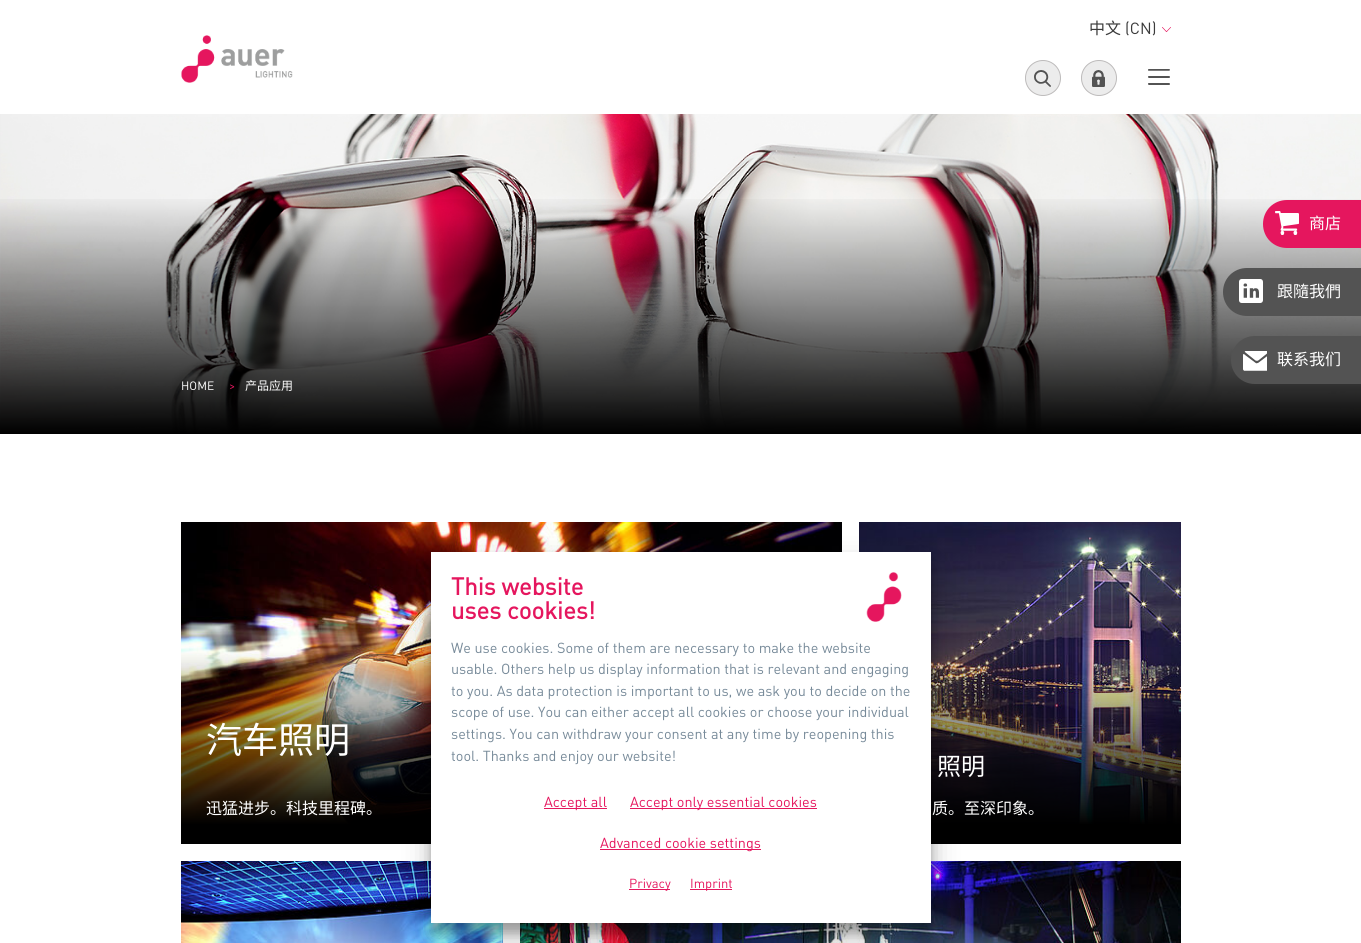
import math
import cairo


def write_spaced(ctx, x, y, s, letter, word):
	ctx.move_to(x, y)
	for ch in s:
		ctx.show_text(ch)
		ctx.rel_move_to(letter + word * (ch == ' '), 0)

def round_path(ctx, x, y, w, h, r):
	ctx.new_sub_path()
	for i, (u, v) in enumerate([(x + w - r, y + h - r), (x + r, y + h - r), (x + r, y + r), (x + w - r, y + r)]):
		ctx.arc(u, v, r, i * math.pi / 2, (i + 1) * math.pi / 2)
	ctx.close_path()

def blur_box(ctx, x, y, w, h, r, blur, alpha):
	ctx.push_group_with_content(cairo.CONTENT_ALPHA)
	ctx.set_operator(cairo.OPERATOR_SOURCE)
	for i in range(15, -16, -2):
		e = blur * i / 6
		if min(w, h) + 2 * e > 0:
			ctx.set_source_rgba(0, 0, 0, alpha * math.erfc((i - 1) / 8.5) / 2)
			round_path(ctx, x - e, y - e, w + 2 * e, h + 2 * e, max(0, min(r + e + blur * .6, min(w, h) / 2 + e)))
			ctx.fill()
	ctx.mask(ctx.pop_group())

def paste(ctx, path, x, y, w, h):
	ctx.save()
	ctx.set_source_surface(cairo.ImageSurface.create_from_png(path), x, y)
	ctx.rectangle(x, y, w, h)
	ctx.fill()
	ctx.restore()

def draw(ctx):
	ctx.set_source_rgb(1, 1, 1)
	ctx.paint()
	ctx.select_font_face('Noto Sans CJK SC')
	ctx.set_font_size(16)
	ctx.set_source_rgb(0.231, 0.231, 0.231)
	ctx.move_to(1089, 34)
	ctx.show_text('中文')
	ctx.select_font_face('din')
	ctx.move_to(1125, 34)
	ctx.show_text('(CN)')
	paste(ctx, 'media/1.png', 1162, 27, 9, 5)
	paste(ctx, 'media/2.png', 181, 35, 112, 48)
	ctx.set_source_rgb(0.922, 0.922, 0.922)
	ctx.arc(1043, 78, 17.5, 0, 2 * math.pi)
	ctx.fill_preserve()
	ctx.set_source_rgb(0.741, 0.733, 0.733)
	ctx.set_line_width(1)
	ctx.stroke()
	paste(ctx, 'media/3.png', 1034, 70, 17, 17)
	ctx.set_source_rgb(0.922, 0.922, 0.922)
	ctx.arc(1099, 78, 17.5, 0, 2 * math.pi)
	ctx.fill_preserve()
	ctx.set_source_rgb(0.741, 0.733, 0.733)
	ctx.stroke()
	paste(ctx, 'media/4.png', 1092, 70, 13, 17)
	paste(ctx, 'media/5.png', 1148, 69, 22, 16)
	ctx.set_source_rgb(0.922, 0.922, 0.922)
	ctx.rectangle(0, 114, 1, 319)
	ctx.fill()
	paste(ctx, 'media/9.png', 0, 114, 1361, 319)
	gradient = cairo.LinearGradient(681, 114, 681, 434)
	gradient.add_color_stop_rgba(0.25, 0, 0, 0, 0)
	gradient.add_color_stop_rgba(1, 0, 0, 0, 1)
	ctx.set_source(gradient)
	ctx.rectangle(0, 199, 1361, 235)
	ctx.fill()
	ctx.set_source_rgb(0.898, 0.086, 0.369)
	ctx.new_path()
	ctx.move_to(1287, 200)
	ctx.line_to(1361, 200)
	ctx.line_to(1361, 248)
	ctx.line_to(1287, 248)
	ctx.curve_to(1273.5, 248, 1263, 237.5, 1263, 224)
	ctx.curve_to(1263, 210.5, 1273.5, 200, 1287, 200)
	ctx.close_path()
	ctx.fill()
	paste(ctx, 'media/6.png', 1275, 211, 24, 24)
	ctx.select_font_face('Noto Sans CJK SC')
	ctx.set_source_rgb(1, 1, 1)
	ctx.move_to(1309, 229)
	ctx.show_text('商店')
	ctx.set_source_rgb(0.325, 0.325, 0.325)
	ctx.new_path()
	ctx.move_to(1247, 268)
	ctx.line_to(1361, 268)
	ctx.line_to(1361, 316)
	ctx.line_to(1247, 316)
	ctx.curve_to(1233.5, 316, 1223, 305.5, 1223, 292)
	ctx.curve_to(1223, 278.5, 1233.5, 268, 1247, 268)
	ctx.close_path()
	ctx.fill()
	paste(ctx, 'media/7.png', 1239, 279, 24, 24)
	ctx.set_source_rgb(1, 1, 1)
	ctx.move_to(1277, 297)
	ctx.show_text('跟隨我們')
	ctx.set_source_rgb(0.325, 0.325, 0.325)
	ctx.new_path()
	ctx.move_to(1255, 336)
	ctx.line_to(1361, 336)
	ctx.line_to(1361, 384)
	ctx.line_to(1255, 384)
	ctx.curve_to(1241.5, 384, 1231, 373.5, 1231, 360)
	ctx.curve_to(1231, 346.5, 1241.5, 336, 1255, 336)
	ctx.close_path()
	ctx.fill()
	paste(ctx, 'media/8.png', 1243, 351, 24, 20)
	ctx.set_source_rgb(1, 1, 1)
	ctx.move_to(1277, 365)
	ctx.show_text('联系我们')
	ctx.select_font_face('din')
	ctx.set_font_size(12)
	ctx.move_to(181, 390)
	ctx.show_text('HOME')
	ctx.set_source_rgb(0.898, 0.086, 0.369)
	ctx.move_to(229, 390)
	ctx.show_text('>')
	ctx.select_font_face('Noto Sans CJK SC')
	ctx.set_source_rgb(1, 1, 1)
	ctx.move_to(245, 390)
	ctx.show_text('产品应用')
	paste(ctx, 'media/11.png', 181, 522, 661, 322)
	paste(ctx, 'media/12.png', 859, 522, 322, 322)
	paste(ctx, 'media/13.png', 181, 861, 322, 82)
	paste(ctx, 'media/14.png', 520, 861, 661, 82)
	ctx.set_source_rgb(0, 0, 0)
	blur_box(ctx, 431, 562, 500, 371, 0, 5, 0.22)
	blur_box(ctx, 431, 566, 500, 371, 0, 14, 0.25)
	ctx.set_source_rgb(1, 1, 1)
	ctx.rectangle(431, 552, 500, 371)
	ctx.fill()
	ctx.select_font_face('din', cairo.FONT_SLANT_NORMAL, cairo.FONT_WEIGHT_BOLD)
	ctx.set_font_size(24)
	ctx.set_source_rgb(0.898, 0.086, 0.369)
	ctx.move_to(451, 595)
	ctx.show_text('This website')
	ctx.move_to(451, 619)
	ctx.show_text('uses cookies!')
	paste(ctx, 'media/10.png', 866, 572, 36, 50)
	ctx.select_font_face('din')
	ctx.set_font_size(14.4)
	ctx.set_source_rgb(0.467, 0.541, 0.6)
	for x, y, s in [
		(451, 653, 'We use cookies. Some of them are necessary to make the website'),
		(451, 674, 'usable. Others help us display information that is relevant and engaging'),
		(451, 696, 'to you. As data protection is important to us, we ask you to decide on the'),
		(451, 717, 'scope of use. You can either accept all cookies or choose your individual'),
		(451, 739, 'settings. You can withdraw your consent at any time by reopening this'),
		(451, 761, 'tool. Thanks and enjoy our website!'),
	]:
		ctx.move_to(x, y)
		ctx.show_text(s)
	ctx.set_source_rgb(0.898, 0.086, 0.369)
	ctx.rectangle(544, 808, 63, 1)
	ctx.fill()
	ctx.move_to(544, 807)
	ctx.show_text('Accept all')
	ctx.rectangle(630, 808, 187, 1)
	ctx.fill()
	ctx.move_to(630, 807)
	ctx.show_text('Accept only essential cookies')
	ctx.rectangle(600, 849, 161, 1)
	ctx.fill()
	ctx.move_to(600, 848)
	ctx.show_text('Advanced cookie settings')
	ctx.rectangle(629, 889, 41, 1)
	ctx.fill()
	ctx.set_font_size(13)
	ctx.move_to(629, 888)
	ctx.show_text('Privacy')
	ctx.rectangle(690, 889, 42, 1)
	ctx.fill()
	ctx.move_to(690, 888)
	ctx.show_text('Imprint')
	ctx.select_font_face('Noto Sans CJK SC')
	ctx.set_font_size(36)
	ctx.set_source_rgb(1, 1, 1)
	ctx.move_to(206, 753)
	ctx.show_text('汽车照明')
	ctx.set_font_size(16)
	ctx.move_to(206, 814)
	ctx.show_text('迅猛进步。科技里程碑。')
	ctx.set_font_size(24)
	write_spaced(ctx, 937, 775, '照明', 0, 1)
	ctx.set_font_size(16)
	ctx.move_to(932, 814)
	ctx.show_text('质。至深印象。')


surface = cairo.ImageSurface(cairo.FORMAT_RGB24, 1361, 943)
ctx = cairo.Context(surface)
options = cairo.FontOptions()
options.set_hint_metrics(cairo.HINT_METRICS_OFF)
options.set_hint_style(cairo.HINT_STYLE_NONE)
ctx.set_font_options(options)
ctx.set_miter_limit(4)
draw(ctx)
surface.write_to_png('image.png')
